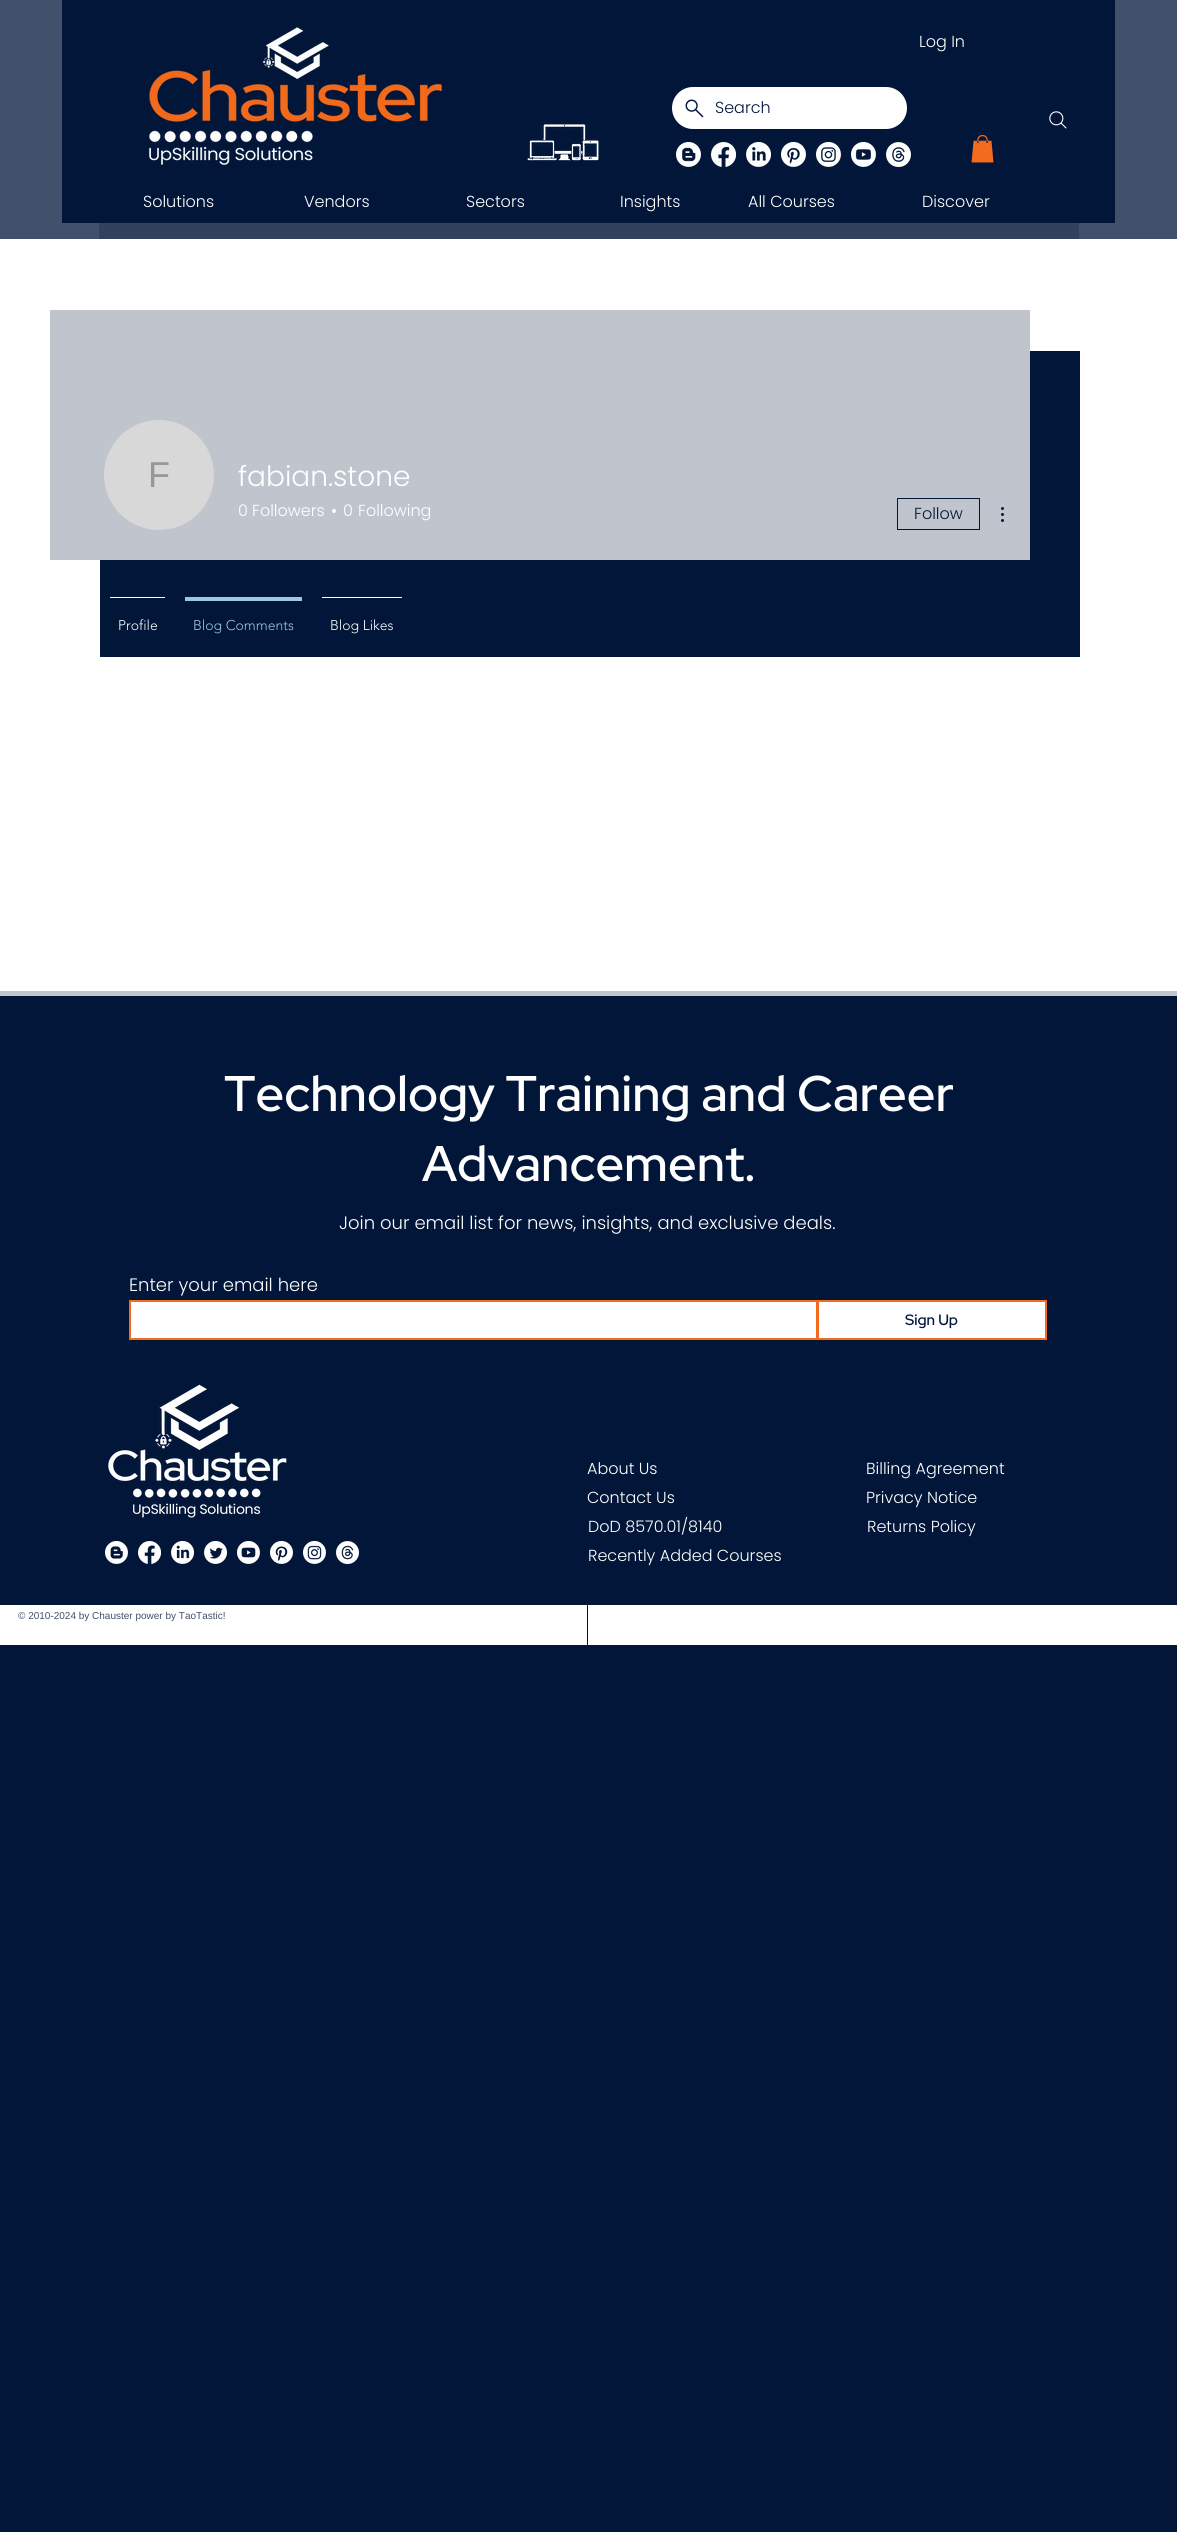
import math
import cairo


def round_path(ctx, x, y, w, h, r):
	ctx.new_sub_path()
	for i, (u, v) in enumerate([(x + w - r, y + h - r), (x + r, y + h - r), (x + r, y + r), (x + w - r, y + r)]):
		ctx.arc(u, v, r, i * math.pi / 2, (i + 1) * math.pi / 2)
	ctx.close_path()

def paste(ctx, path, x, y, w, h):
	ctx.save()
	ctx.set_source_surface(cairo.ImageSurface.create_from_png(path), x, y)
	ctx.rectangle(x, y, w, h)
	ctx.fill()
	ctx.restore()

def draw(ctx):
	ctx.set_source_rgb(0.008, 0.086, 0.224)
	ctx.paint()
	ctx.set_source_rgb(0.255, 0.314, 0.42)
	ctx.rectangle(0, 0, 1177, 239)
	ctx.fill()
	ctx.set_source_rgb(0.008, 0.086, 0.224)
	ctx.rectangle(62, 0, 1053, 223)
	ctx.fill()
	paste(ctx, 'media/1.png', 149, 27, 293, 138)
	ctx.select_font_face('Poppins Light')
	ctx.set_font_size(16)
	ctx.set_source_rgb(1, 1, 1)
	ctx.move_to(919, 47)
	ctx.show_text('Log In')
	round_path(ctx, 672, 87, 235, 42, 21)
	ctx.fill()
	paste(ctx, 'media/2.png', 685, 99, 19, 19)
	ctx.set_source_rgb(0.008, 0.09, 0.231)
	ctx.move_to(715, 113)
	ctx.show_text('Search')
	paste(ctx, 'media/3.png', 527, 124, 72, 37)
	paste(ctx, 'media/4.png', 676, 142, 25, 25)
	paste(ctx, 'media/5.png', 711, 142, 25, 25)
	paste(ctx, 'media/6.png', 746, 142, 25, 25)
	paste(ctx, 'media/7.png', 781, 142, 25, 25)
	paste(ctx, 'media/8.png', 816, 142, 25, 25)
	paste(ctx, 'media/9.png', 851, 142, 25, 25)
	paste(ctx, 'media/10.png', 886, 142, 25, 25)
	paste(ctx, 'media/11.png', 971, 135, 23, 28)
	ctx.set_source_rgb(1, 1, 1)
	for x, y, s in [
		(143, 207, 'Solutions'),
		(304, 207, 'Vendors'),
		(466, 207, 'Sectors'),
		(620, 207, 'Insights'),
		(748, 207, 'All Courses'),
		(922, 207, 'Discover'),
	]:
		ctx.move_to(x, y)
		ctx.show_text(s)
	paste(ctx, 'media/12.png', 1049, 111, 18, 18)
	ctx.set_source_rgb(0.192, 0.259, 0.373)
	ctx.rectangle(99, 223, 980, 16)
	ctx.fill()
	ctx.set_source_rgb(1, 1, 1)
	ctx.rectangle(0, 239, 1177, 752)
	ctx.fill()
	ctx.set_source_rgb(0.008, 0.086, 0.224)
	ctx.rectangle(100, 351, 980, 306)
	ctx.fill()
	ctx.set_source_rgb(0.753, 0.773, 0.804)
	ctx.rectangle(50, 310, 980, 250)
	ctx.fill()
	ctx.set_source_rgb(0.847, 0.847, 0.847)
	ctx.arc(159, 475, 55, 0, 2 * math.pi)
	ctx.fill()
	ctx.select_font_face('Liberation Sans')
	ctx.set_font_size(36)
	ctx.set_source_rgb(0.592, 0.592, 0.592)
	ctx.move_to(148, 487)
	ctx.show_text('F')
	ctx.select_font_face('Poppins Light')
	ctx.set_font_size(28)
	ctx.set_source_rgb(1, 1, 1)
	ctx.move_to(238, 486)
	ctx.show_text('fabian.stone')
	ctx.set_font_size(16)
	ctx.move_to(238, 516)
	ctx.show_text('0')
	ctx.move_to(252, 516)
	ctx.show_text('Followers')
	ctx.new_path()
	ctx.arc(334, 511, 2, 0, 2 * math.pi)
	ctx.fill()
	ctx.move_to(343, 516)
	ctx.show_text('0')
	ctx.move_to(358, 516)
	ctx.show_text('Following')
	ctx.rectangle(897.5, 498.5, 82, 31)
	ctx.set_source_rgb(0.008, 0.086, 0.224)
	ctx.set_line_width(1)
	ctx.stroke()
	ctx.set_source_rgb(0.008, 0.09, 0.231)
	ctx.move_to(914, 519)
	ctx.show_text('Follow')
	paste(ctx, 'media/13.png', 1001, 507, 3, 15)
	ctx.set_source_rgb(1, 1, 1)
	ctx.rectangle(110, 597, 55, 1)
	ctx.fill()
	ctx.select_font_face('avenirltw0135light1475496 Light')
	ctx.set_font_size(14)
	ctx.move_to(118, 630)
	ctx.show_text('Profile')
	ctx.set_source_rgb(0.616, 0.776, 0.898)
	ctx.rectangle(185, 597, 117, 4)
	ctx.fill()
	ctx.move_to(193, 630)
	ctx.show_text('Blog Comments')
	ctx.set_source_rgb(1, 1, 1)
	ctx.rectangle(322, 597, 80, 1)
	ctx.fill()
	ctx.move_to(330, 630)
	ctx.show_text('Blog Likes')
	ctx.set_source_rgb(0.753, 0.773, 0.808)
	ctx.rectangle(0, 991, 1177, 5)
	ctx.fill()
	ctx.select_font_face('Red Hat Display Medium')
	ctx.set_font_size(50)
	ctx.set_source_rgb(1, 1, 1)
	ctx.move_to(224, 1111)
	ctx.show_text('Technology Training and Career')
	ctx.move_to(422, 1181)
	ctx.show_text('Advancement.')
	ctx.select_font_face('Poppins Light')
	ctx.set_font_size(18)
	ctx.move_to(339, 1229)
	ctx.show_text('Join our email list for news, insights, and exclusive deals.')
	ctx.move_to(129, 1291)
	ctx.show_text('Enter your email here')
	ctx.rectangle(130, 1301, 687, 38)
	ctx.fill_preserve()
	ctx.set_source_rgb(0.953, 0.42, 0.11)
	ctx.set_line_width(2)
	ctx.stroke()
	ctx.set_source_rgb(1, 1, 1)
	ctx.rectangle(818, 1301, 228, 38)
	ctx.fill_preserve()
	ctx.set_source_rgb(0.953, 0.42, 0.11)
	ctx.stroke()
	ctx.select_font_face('Red Hat Display Medium')
	ctx.set_font_size(15)
	ctx.set_source_rgb(0.008, 0.09, 0.231)
	ctx.move_to(905, 1325)
	ctx.show_text('Sign Up')
	paste(ctx, 'media/14.png', 108, 1384, 179, 134)
	ctx.select_font_face('Poppins Light')
	ctx.set_font_size(16)
	ctx.set_source_rgb(1, 1, 1)
	for x, y, s in [
		(587, 1474, 'About Us'),
		(866, 1474, 'Billing Agreement'),
		(587, 1503, 'Contact Us'),
		(866, 1503, 'Privacy Notice'),
		(588, 1532, 'DoD 8570.01/8140'),
		(867, 1532, 'Returns Policy'),
	]:
		ctx.move_to(x, y)
		ctx.show_text(s)
	paste(ctx, 'media/15.png', 105, 1541, 23, 23)
	paste(ctx, 'media/16.png', 138, 1541, 23, 23)
	paste(ctx, 'media/17.png', 171, 1541, 23, 23)
	paste(ctx, 'media/18.png', 204, 1541, 23, 23)
	paste(ctx, 'media/19.png', 237, 1541, 23, 23)
	paste(ctx, 'media/20.png', 270, 1541, 23, 23)
	paste(ctx, 'media/21.png', 303, 1541, 23, 23)
	paste(ctx, 'media/22.png', 336, 1541, 23, 23)
	ctx.move_to(588, 1561)
	ctx.show_text('Recently Added Courses')
	ctx.rectangle(0, 1605, 587, 40)
	ctx.fill()
	ctx.select_font_face('Liberation Sans')
	ctx.set_font_size(10)
	ctx.set_source_rgb(0.255, 0.314, 0.42)
	ctx.move_to(18, 1619)
	ctx.show_text('© 2010-2024 by Chauster power by TaoTastic!')
	ctx.set_source_rgb(1, 1, 1)
	ctx.rectangle(588, 1605, 589, 40)
	ctx.fill()


surface = cairo.ImageSurface(cairo.FORMAT_RGB24, 1177, 2532)
ctx = cairo.Context(surface)
options = cairo.FontOptions()
options.set_hint_metrics(cairo.HINT_METRICS_OFF)
options.set_hint_style(cairo.HINT_STYLE_NONE)
ctx.set_font_options(options)
ctx.set_miter_limit(4)
draw(ctx)
surface.write_to_png('image.png')
